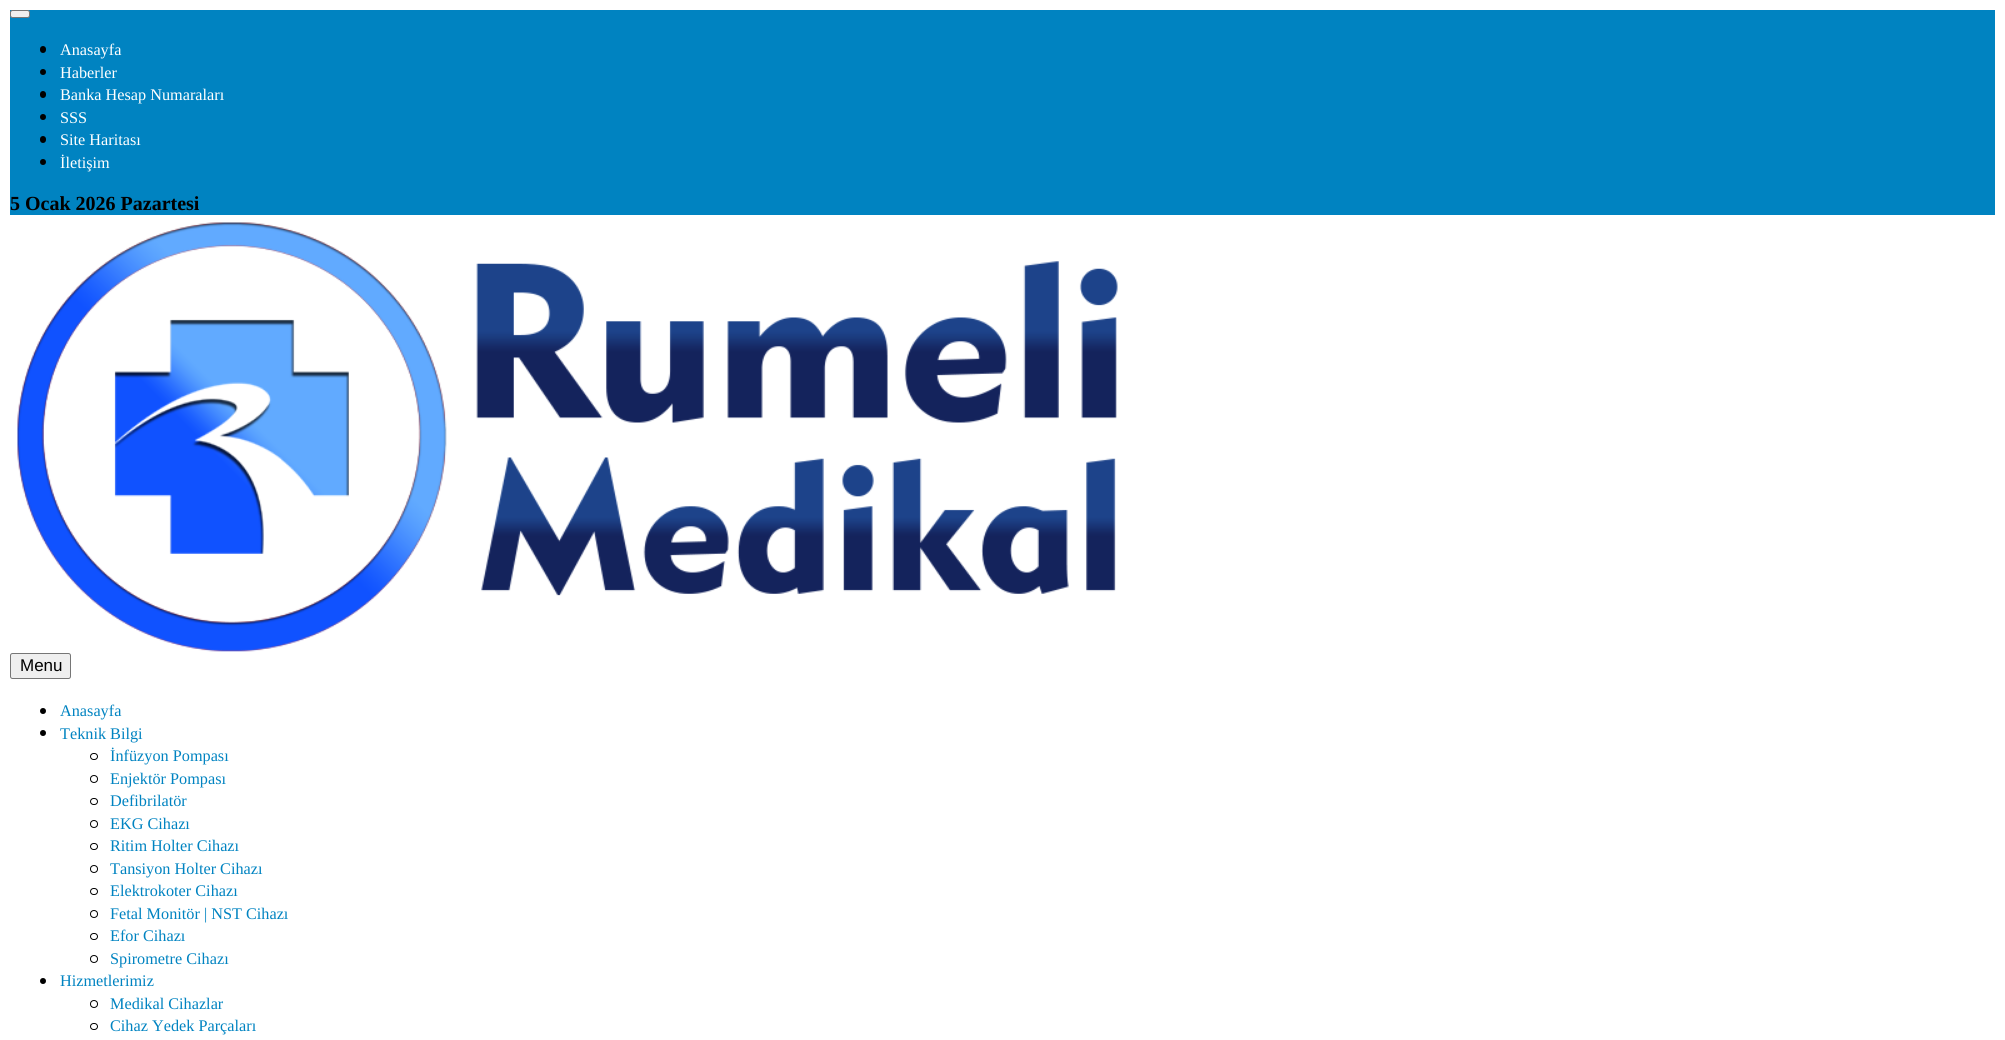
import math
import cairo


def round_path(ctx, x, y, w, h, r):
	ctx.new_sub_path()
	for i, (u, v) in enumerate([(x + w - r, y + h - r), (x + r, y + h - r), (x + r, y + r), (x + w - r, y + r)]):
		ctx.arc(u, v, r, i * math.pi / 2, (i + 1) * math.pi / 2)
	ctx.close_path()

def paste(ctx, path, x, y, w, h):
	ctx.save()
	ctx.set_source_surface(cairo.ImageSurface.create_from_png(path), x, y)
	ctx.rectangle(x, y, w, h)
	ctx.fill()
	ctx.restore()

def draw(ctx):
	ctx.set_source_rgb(1, 1, 1)
	ctx.paint()
	ctx.set_source_rgb(0, 0.514, 0.757)
	ctx.rectangle(10, 10, 1985, 205)
	ctx.fill()
	ctx.set_source_rgb(0.937, 0.937, 0.937)
	round_path(ctx, 10.5, 10.5, 19, 7, 2)
	ctx.fill_preserve()
	ctx.set_source_rgb(0.463, 0.463, 0.463)
	ctx.set_line_width(1)
	ctx.stroke()
	ctx.set_source_rgb(0, 0, 0)
	round_path(ctx, 40, 46, 6, 7, 3)
	ctx.fill()
	ctx.select_font_face('Liberation Serif')
	ctx.set_font_size(16.25)
	ctx.set_source_rgb(1, 1, 1)
	ctx.move_to(60, 55)
	ctx.show_text('Anasayfa')
	ctx.set_source_rgb(0, 0, 0)
	ctx.new_path()
	ctx.arc(43, 72, 3, 0, 2 * math.pi)
	ctx.fill()
	ctx.set_source_rgb(1, 1, 1)
	ctx.move_to(60, 78)
	ctx.show_text('Haberler')
	ctx.set_source_rgb(0, 0, 0)
	round_path(ctx, 40, 91, 6, 7, 3)
	ctx.fill()
	ctx.set_source_rgb(1, 1, 1)
	ctx.move_to(60, 100)
	ctx.show_text('Banka Hesap Numaraları')
	ctx.set_source_rgb(0, 0, 0)
	ctx.new_path()
	ctx.arc(43, 117, 3, 0, 2 * math.pi)
	ctx.fill()
	ctx.set_source_rgb(1, 1, 1)
	ctx.move_to(60, 123)
	ctx.show_text('SSS')
	ctx.set_source_rgb(0, 0, 0)
	round_path(ctx, 40, 136, 6, 7, 3)
	ctx.fill()
	ctx.set_source_rgb(1, 1, 1)
	ctx.move_to(60, 145)
	ctx.show_text('Site Haritası')
	ctx.set_source_rgb(0, 0, 0)
	ctx.new_path()
	ctx.arc(43, 162, 3, 0, 2 * math.pi)
	ctx.fill()
	ctx.set_source_rgb(1, 1, 1)
	ctx.move_to(60, 168)
	ctx.show_text('İletişim')
	ctx.select_font_face('Liberation Serif', cairo.FONT_SLANT_NORMAL, cairo.FONT_WEIGHT_BOLD)
	ctx.set_font_size(20)
	ctx.set_source_rgb(0, 0, 0)
	ctx.move_to(10, 210)
	ctx.show_text('5 Ocak 2026 Pazartesi')
	paste(ctx, 'media/1.png', 17, 222, 1101, 430)
	ctx.set_source_rgb(0.937, 0.937, 0.937)
	round_path(ctx, 10.5, 653.5, 60, 25, 2)
	ctx.fill_preserve()
	ctx.set_source_rgb(0.463, 0.463, 0.463)
	ctx.stroke()
	ctx.select_font_face('Liberation Sans')
	ctx.set_font_size(17)
	ctx.set_source_rgb(0, 0, 0)
	ctx.move_to(20, 671)
	ctx.show_text('Menu')
	ctx.new_path()
	ctx.arc(43, 711, 3, 0, 2 * math.pi)
	ctx.fill()
	ctx.select_font_face('Liberation Serif')
	ctx.set_font_size(16.25)
	ctx.set_source_rgb(0, 0.514, 0.757)
	ctx.move_to(60, 716)
	ctx.show_text('Anasayfa')
	ctx.set_source_rgb(0, 0, 0)
	ctx.new_path()
	ctx.arc(43, 733, 3, 0, 2 * math.pi)
	ctx.fill()
	ctx.set_source_rgb(0, 0.514, 0.757)
	ctx.move_to(60, 739)
	ctx.show_text('Teknik Bilgi')
	round_path(ctx, 90.5, 753.5, 7, 6, 3)
	ctx.set_source_rgb(0, 0, 0)
	ctx.stroke()
	ctx.set_source_rgb(0, 0.514, 0.757)
	ctx.move_to(110, 761)
	ctx.show_text('İnfüzyon Pompası')
	ctx.new_path()
	ctx.arc(94, 779, 3.5, 0, 2 * math.pi)
	ctx.set_source_rgb(0, 0, 0)
	ctx.stroke()
	ctx.set_source_rgb(0, 0.514, 0.757)
	ctx.move_to(110, 784)
	ctx.show_text('Enjektör Pompası')
	round_path(ctx, 90.5, 798.5, 7, 6, 3)
	ctx.set_source_rgb(0, 0, 0)
	ctx.stroke()
	ctx.set_source_rgb(0, 0.514, 0.757)
	ctx.move_to(110, 806)
	ctx.show_text('Defibrilatör')
	ctx.new_path()
	ctx.arc(94, 824, 3.5, 0, 2 * math.pi)
	ctx.set_source_rgb(0, 0, 0)
	ctx.stroke()
	ctx.set_source_rgb(0, 0.514, 0.757)
	ctx.move_to(110, 829)
	ctx.show_text('EKG Cihazı')
	round_path(ctx, 90.5, 843.5, 7, 6, 3)
	ctx.set_source_rgb(0, 0, 0)
	ctx.stroke()
	ctx.set_source_rgb(0, 0.514, 0.757)
	ctx.move_to(110, 851)
	ctx.show_text('Ritim Holter Cihazı')
	ctx.new_path()
	ctx.arc(94, 869, 3.5, 0, 2 * math.pi)
	ctx.set_source_rgb(0, 0, 0)
	ctx.stroke()
	ctx.set_source_rgb(0, 0.514, 0.757)
	ctx.move_to(110, 874)
	ctx.show_text('Tansiyon Holter Cihazı')
	round_path(ctx, 90.5, 888.5, 7, 6, 3)
	ctx.set_source_rgb(0, 0, 0)
	ctx.stroke()
	ctx.set_source_rgb(0, 0.514, 0.757)
	ctx.move_to(110, 896)
	ctx.show_text('Elektrokoter Cihazı')
	ctx.new_path()
	ctx.arc(94, 914, 3.5, 0, 2 * math.pi)
	ctx.set_source_rgb(0, 0, 0)
	ctx.stroke()
	ctx.set_source_rgb(0, 0.514, 0.757)
	ctx.move_to(110, 919)
	ctx.show_text('Fetal Monitör | NST Cihazı')
	round_path(ctx, 90.5, 933.5, 7, 6, 3)
	ctx.set_source_rgb(0, 0, 0)
	ctx.stroke()
	ctx.set_source_rgb(0, 0.514, 0.757)
	ctx.move_to(110, 941)
	ctx.show_text('Efor Cihazı')
	ctx.new_path()
	ctx.arc(94, 959, 3.5, 0, 2 * math.pi)
	ctx.set_source_rgb(0, 0, 0)
	ctx.stroke()
	ctx.set_source_rgb(0, 0.514, 0.757)
	ctx.move_to(110, 964)
	ctx.show_text('Spirometre Cihazı')
	ctx.set_source_rgb(0, 0, 0)
	ctx.new_path()
	ctx.arc(43, 981, 3, 0, 2 * math.pi)
	ctx.fill()
	ctx.set_source_rgb(0, 0.514, 0.757)
	ctx.move_to(60, 986)
	ctx.show_text('Hizmetlerimiz')
	ctx.new_path()
	ctx.arc(94, 1004, 3.5, 0, 2 * math.pi)
	ctx.set_source_rgb(0, 0, 0)
	ctx.stroke()
	ctx.set_source_rgb(0, 0.514, 0.757)
	ctx.move_to(110, 1009)
	ctx.show_text('Medikal Cihazlar')
	round_path(ctx, 90.5, 1023.5, 7, 6, 3)
	ctx.set_source_rgb(0, 0, 0)
	ctx.stroke()
	ctx.set_source_rgb(0, 0.514, 0.757)
	ctx.move_to(110, 1031)
	ctx.show_text('Cihaz Yedek Parçaları')


surface = cairo.ImageSurface(cairo.FORMAT_RGB24, 2005, 1040)
ctx = cairo.Context(surface)
options = cairo.FontOptions()
options.set_hint_metrics(cairo.HINT_METRICS_OFF)
options.set_hint_style(cairo.HINT_STYLE_NONE)
ctx.set_font_options(options)
ctx.set_miter_limit(4)
draw(ctx)
surface.write_to_png('image.png')
